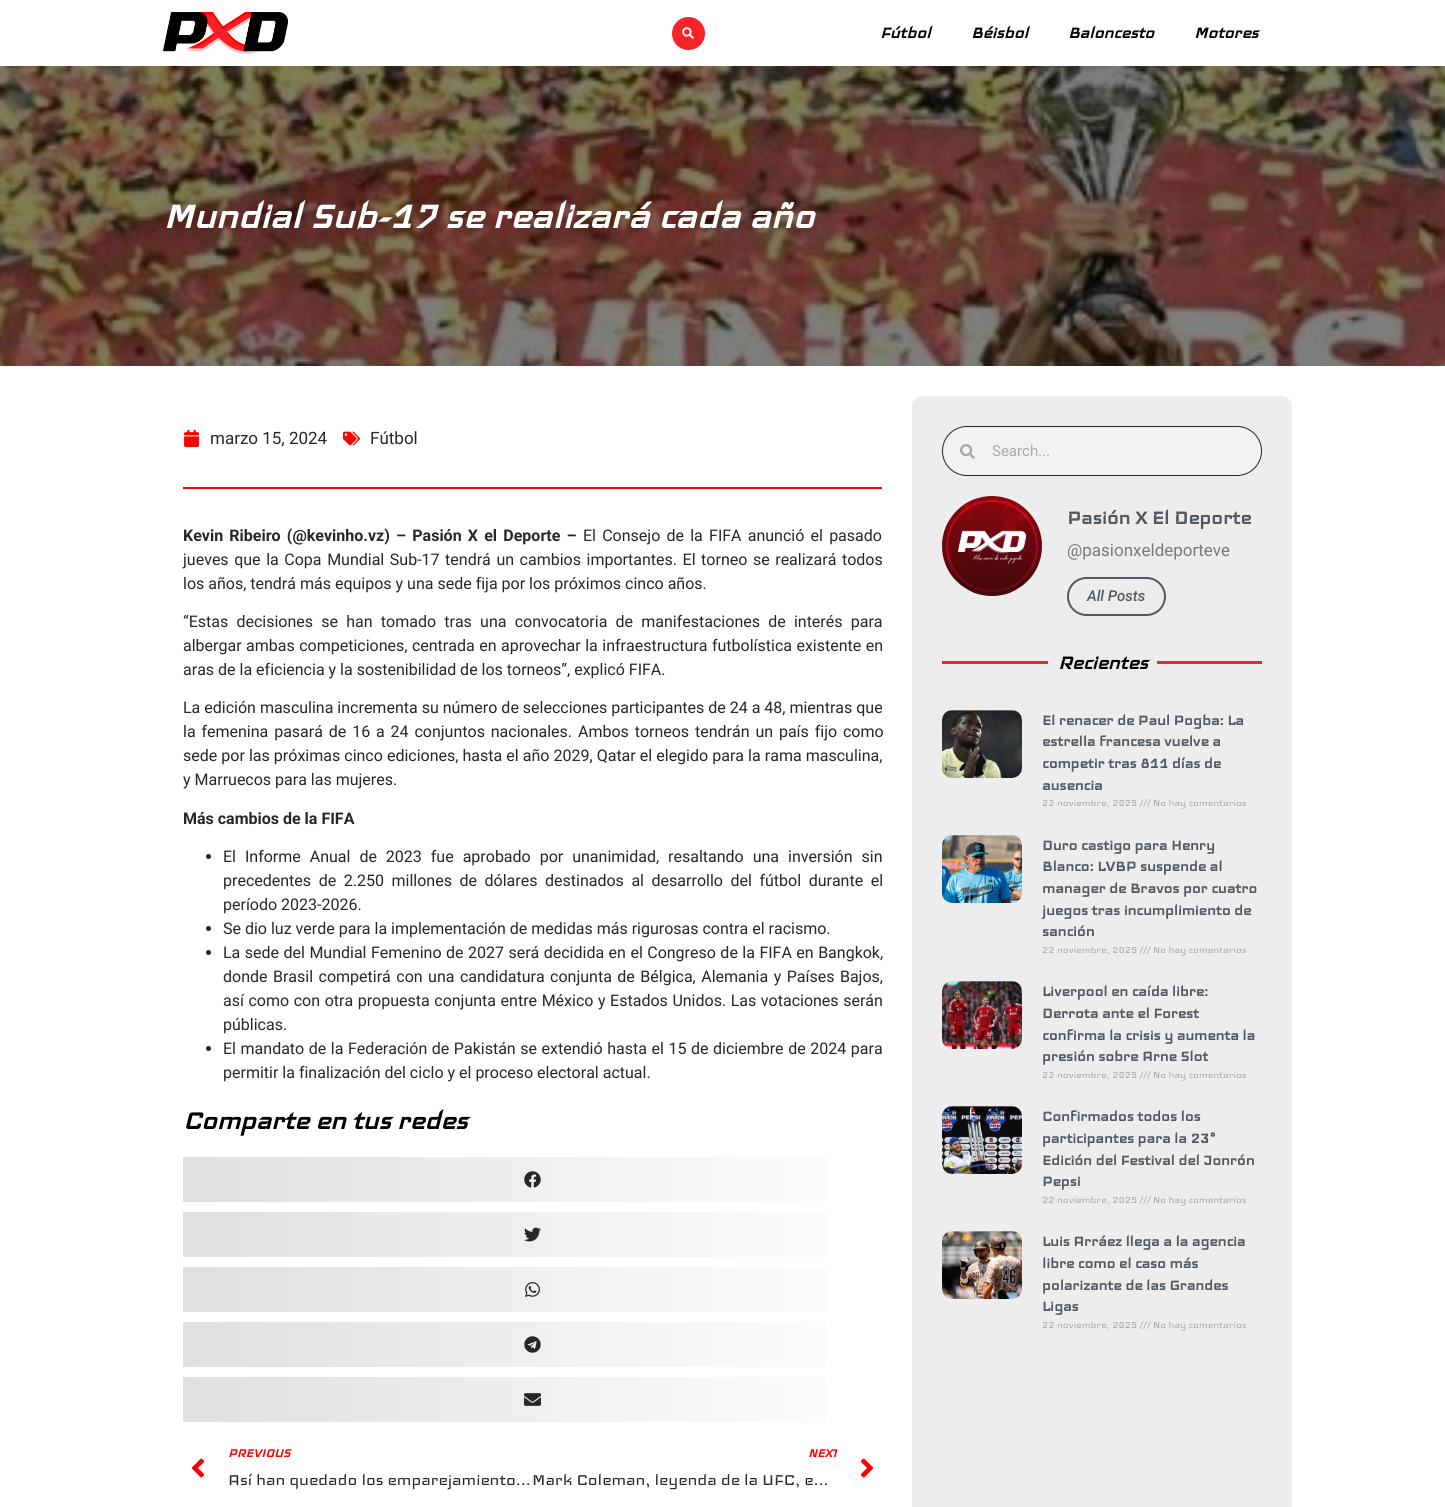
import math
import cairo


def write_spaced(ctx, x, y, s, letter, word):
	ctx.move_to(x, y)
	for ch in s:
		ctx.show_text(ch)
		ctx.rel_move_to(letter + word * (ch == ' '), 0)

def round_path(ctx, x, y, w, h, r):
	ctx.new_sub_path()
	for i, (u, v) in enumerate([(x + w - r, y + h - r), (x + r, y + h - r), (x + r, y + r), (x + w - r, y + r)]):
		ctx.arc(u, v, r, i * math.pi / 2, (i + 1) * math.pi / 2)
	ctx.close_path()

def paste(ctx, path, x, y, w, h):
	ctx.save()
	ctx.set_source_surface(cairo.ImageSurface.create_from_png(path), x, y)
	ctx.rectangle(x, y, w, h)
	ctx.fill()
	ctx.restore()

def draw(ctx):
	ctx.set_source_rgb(1, 1, 1)
	ctx.paint()
	paste(ctx, 'media/1.png', 163, 12, 125, 42)
	ctx.set_source_rgb(0.965, 0.137, 0.165)
	ctx.arc(688.5, 33.5, 16.5, 0, 2 * math.pi)
	ctx.fill()
	paste(ctx, 'media/2.png', 682, 27, 12, 12)
	ctx.select_font_face('Iceland', cairo.FONT_SLANT_ITALIC, cairo.FONT_WEIGHT_BOLD)
	ctx.set_font_size(20)
	ctx.set_source_rgb(0, 0, 0)
	for x, y, s in [
		(880, 38, 'Fútbol'),
		(971, 38, 'Béisbol'),
		(1068, 38, 'Baloncesto'),
		(1194, 38, 'Motores'),
	]:
		ctx.move_to(x, y)
		ctx.show_text(s)
	paste(ctx, 'media/3.png', 0, 66, 1445, 300)
	ctx.set_font_size(45)
	ctx.set_source_rgb(1, 1, 1)
	ctx.move_to(163, 228)
	ctx.show_text('Mundial Sub-17 se realizará cada año')
	paste(ctx, 'media/4.png', 184, 430, 15, 17)
	ctx.select_font_face('Roboto')
	ctx.set_font_size(17)
	ctx.set_source_rgb(0.153, 0.153, 0.153)
	ctx.move_to(210, 444)
	ctx.show_text('marzo 15, 2024')
	paste(ctx, 'media/5.png', 343, 431, 17, 15)
	ctx.move_to(370, 444)
	ctx.show_text('Fútbol')
	ctx.set_source_rgb(1, 0, 0)
	ctx.rectangle(183, 487, 699, 2)
	ctx.fill()
	ctx.select_font_face('Roboto', cairo.FONT_SLANT_NORMAL, cairo.FONT_WEIGHT_BOLD)
	ctx.set_font_size(16)
	ctx.set_source_rgb(0.153, 0.153, 0.153)
	write_spaced(ctx, 183, 541, 'Kevin Ribeiro (@kevinho.vz) – Pasión X el Deporte –', 0, 2.25)
	ctx.select_font_face('Roboto')
	write_spaced(ctx, 583, 541, 'El Consejo de la FIFA anunció el pasado', 0, 2.25)
	write_spaced(ctx, 183, 565, 'jueves que la Copa Mundial Sub-17 tendrá un cambios importantes. El torneo se realizará todos', 0, 1.6)
	ctx.move_to(183, 589)
	ctx.show_text('los años, tendrá más equipos y una sede fija por los próximos cinco años.')
	write_spaced(ctx, 183, 627, '“Estas decisiones se han tomado tras una convocatoria de manifestaciones de interés para', 0, 4.25)
	write_spaced(ctx, 183, 651, 'albergar ambas competiciones, centrada en aprovechar la infraestructura futbolística existente en', 0, 0.5)
	ctx.move_to(183, 675)
	ctx.show_text('aras de la eficiencia y la sostenibilidad de los torneos”, explicó FIFA.')
	ctx.move_to(183, 713)
	ctx.show_text('La edición masculina incrementa su número de selecciones participantes de 24 a 48, mientras que')
	write_spaced(ctx, 183, 737, 'la femenina pasará de 16 a 24 conjuntos nacionales. Ambos torneos tendrán un país fijo como', 0, 1.9)
	write_spaced(ctx, 183, 761, 'sede por las próximas cinco ediciones, hasta el año 2029, Qatar el elegido para la rama masculina,', 0, 0.1)
	ctx.move_to(183, 785)
	ctx.show_text('y Marruecos para las mujeres.')
	ctx.select_font_face('Roboto', cairo.FONT_SLANT_NORMAL, cairo.FONT_WEIGHT_BOLD)
	ctx.move_to(183, 824)
	ctx.show_text('Más cambios de la FIFA')
	ctx.new_path()
	ctx.arc(208.5, 856.5, 2.5, 0, 2 * math.pi)
	ctx.fill()
	ctx.select_font_face('Roboto')
	write_spaced(ctx, 223, 862, 'El Informe Anual de 2023 fue aprobado por unanimidad, resaltando una inversión sin', 0, 5)
	write_spaced(ctx, 223, 886, 'precedentes de 2.250 millones de dólares destinados al desarrollo del fútbol durante el', 0, 3.6)
	ctx.move_to(223, 910)
	ctx.show_text('período 2023-2026.')
	ctx.new_path()
	ctx.arc(208.5, 928.5, 2.5, 0, 2 * math.pi)
	ctx.fill()
	ctx.move_to(223, 934)
	ctx.show_text('Se dio luz verde para la implementación de medidas más rigurosas contra el racismo.')
	ctx.new_path()
	ctx.arc(208.5, 952.5, 2.5, 0, 2 * math.pi)
	ctx.fill()
	write_spaced(ctx, 223, 958, 'La sede del Mundial Femenino de 2027 será decidida en el Congreso de la FIFA en Bangkok,', 0, 0.5)
	write_spaced(ctx, 223, 982, 'donde Brasil competirá con una candidatura conjunta de Bélgica, Alemania y Países Bajos,', 0, 1.5)
	write_spaced(ctx, 223, 1006, 'así como con otra propuesta conjunta entre México y Estados Unidos. Las votaciones serán', 0, 0.6)
	ctx.move_to(223, 1030)
	ctx.show_text('públicas.')
	ctx.new_path()
	ctx.arc(208.5, 1048.5, 2.5, 0, 2 * math.pi)
	ctx.fill()
	write_spaced(ctx, 223, 1054, 'El mandato de la Federación de Pakistán se extendió hasta el 15 de diciembre de 2024 para', 0, 0.6)
	ctx.move_to(223, 1078)
	ctx.show_text('permitir la finalización del ciclo y el proceso electoral actual.')
	ctx.select_font_face('Iceland', cairo.FONT_SLANT_ITALIC, cairo.FONT_WEIGHT_BOLD)
	ctx.set_font_size(32)
	ctx.set_source_rgb(0, 0, 0)
	ctx.move_to(183, 1129)
	ctx.show_text('Comparte en tus redes')
	gradient = cairo.LinearGradient(183, 1180, 882, 1180)
	gradient.add_color_stop_rgba(0, 0.878, 0.878, 0.878, 1)
	gradient.add_color_stop_rgba(1, 1, 1, 1, 1)
	ctx.set_source(gradient)
	ctx.rectangle(183, 1157, 643, 45)
	ctx.fill()
	paste(ctx, 'media/6.png', 524, 1171, 17, 17)
	gradient = cairo.LinearGradient(183, 1235, 882, 1235)
	gradient.add_color_stop_rgba(0, 0.878, 0.878, 0.878, 1)
	gradient.add_color_stop_rgba(1, 1, 1, 1, 1)
	ctx.set_source(gradient)
	ctx.rectangle(183, 1212, 643, 45)
	ctx.fill()
	paste(ctx, 'media/7.png', 524, 1227, 17, 15)
	gradient = cairo.LinearGradient(183, 1290, 882, 1290)
	gradient.add_color_stop_rgba(0, 0.878, 0.878, 0.878, 1)
	gradient.add_color_stop_rgba(1, 1, 1, 1, 1)
	ctx.set_source(gradient)
	ctx.rectangle(183, 1267, 643, 45)
	ctx.fill()
	paste(ctx, 'media/8.png', 525, 1282, 15, 15)
	gradient = cairo.LinearGradient(183, 1345, 882, 1345)
	gradient.add_color_stop_rgba(0, 0.878, 0.878, 0.878, 1)
	gradient.add_color_stop_rgba(1, 1, 1, 1, 1)
	ctx.set_source(gradient)
	ctx.rectangle(183, 1322, 643, 45)
	ctx.fill()
	paste(ctx, 'media/9.png', 524, 1336, 17, 17)
	gradient = cairo.LinearGradient(183, 1400, 882, 1400)
	gradient.add_color_stop_rgba(0, 0.878, 0.878, 0.878, 1)
	gradient.add_color_stop_rgba(1, 1, 1, 1, 1)
	ctx.set_source(gradient)
	ctx.rectangle(183, 1377, 643, 45)
	ctx.fill()
	paste(ctx, 'media/10.png', 524, 1393, 17, 13)
	paste(ctx, 'media/11.png', 192, 1458, 12, 20)
	ctx.set_font_size(15)
	ctx.set_source_rgb(1, 0, 0)
	ctx.move_to(228, 1457)
	ctx.show_text('PREVIOUS')
	ctx.select_font_face('Iceland')
	ctx.set_font_size(20)
	ctx.set_source_rgb(0.153, 0.153, 0.153)
	ctx.move_to(228, 1485)
	ctx.show_text('Así han quedado los emparejamiento...')
	ctx.save()
	ctx.rectangle(532, 1442, 305, 23)
	ctx.clip()
	ctx.select_font_face('Iceland', cairo.FONT_SLANT_ITALIC, cairo.FONT_WEIGHT_BOLD)
	ctx.set_font_size(15)
	ctx.set_source_rgb(1, 0, 0)
	ctx.move_to(808, 1457)
	ctx.show_text('NEXT')
	ctx.restore()
	ctx.move_to(532, 1485)
	ctx.show_text('Mark Coleman, leyenda de la UFC, e...')
	paste(ctx, 'media/12.png', 861, 1458, 12, 20)
	ctx.set_source_rgb(0.929, 0.929, 0.929)
	round_path(ctx, 912, 396, 380, 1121, 10)
	ctx.fill()
	ctx.set_source_rgb(0.945, 0.949, 0.953)
	round_path(ctx, 942.5, 426.5, 319, 49, 24.5)
	ctx.fill_preserve()
	ctx.set_source_rgb(0.153, 0.153, 0.153)
	ctx.set_line_width(1)
	ctx.stroke()
	paste(ctx, 'media/13.png', 960, 444, 15, 15)
	ctx.select_font_face('Roboto')
	ctx.set_font_size(15)
	ctx.set_source_rgb(0.667, 0.667, 0.667)
	ctx.move_to(992, 456)
	ctx.show_text('Search...')
	paste(ctx, 'media/14.png', 942, 496, 100, 100)
	ctx.select_font_face('Iceland', cairo.FONT_SLANT_NORMAL, cairo.FONT_WEIGHT_BOLD)
	ctx.set_font_size(24)
	ctx.set_source_rgb(0.329, 0.349, 0.373)
	ctx.move_to(1067, 524)
	ctx.show_text('Pasión X El Deporte')
	ctx.select_font_face('Roboto')
	ctx.set_font_size(17)
	ctx.set_source_rgb(0.478, 0.478, 0.478)
	ctx.move_to(1067, 556)
	ctx.show_text('@pasionxeldeporteve')
	round_path(ctx, 1068, 578, 97, 37, 18.5)
	ctx.set_source_rgb(0.329, 0.349, 0.373)
	ctx.set_line_width(2)
	ctx.stroke()
	ctx.select_font_face('Roboto Medium', cairo.FONT_SLANT_ITALIC)
	ctx.set_font_size(15)
	ctx.move_to(1087, 601)
	ctx.show_text('All Posts')
	ctx.set_source_rgb(0.965, 0.137, 0.165)
	ctx.rectangle(942, 661, 106, 3)
	ctx.fill()
	ctx.select_font_face('Iceland', cairo.FONT_SLANT_ITALIC, cairo.FONT_WEIGHT_BOLD)
	ctx.set_font_size(24)
	ctx.set_source_rgb(0, 0, 0)
	ctx.move_to(1058, 669)
	ctx.show_text('Recientes')
	ctx.set_source_rgb(0.965, 0.137, 0.165)
	ctx.rectangle(1157, 661, 105, 3)
	ctx.fill()
	paste(ctx, 'media/15.png', 942, 710, 80, 68)
	ctx.select_font_face('Iceland', cairo.FONT_SLANT_NORMAL, cairo.FONT_WEIGHT_BOLD)
	ctx.set_font_size(18)
	ctx.set_source_rgb(0.329, 0.349, 0.373)
	for x, y, s in [
		(1042, 725, 'El renacer de Paul Pogba: La'),
		(1042, 746, 'estrella francesa vuelve a'),
		(1042, 768, 'competir tras 811 días de'),
		(1042, 790, 'ausencia'),
	]:
		ctx.move_to(x, y)
		ctx.show_text(s)
	ctx.select_font_face('Iceland')
	ctx.set_font_size(12)
	ctx.set_source_rgb(0.667, 0.667, 0.667)
	ctx.move_to(1042, 806)
	ctx.show_text('22 noviembre, 2025 /// No hay comentarios')
	paste(ctx, 'media/16.png', 942, 835, 80, 68)
	ctx.select_font_face('Iceland', cairo.FONT_SLANT_NORMAL, cairo.FONT_WEIGHT_BOLD)
	ctx.set_font_size(18)
	ctx.set_source_rgb(0.329, 0.349, 0.373)
	for x, y, s in [
		(1042, 850, 'Duro castigo para Henry'),
		(1042, 871, 'Blanco: LVBP suspende al'),
		(1042, 893, 'manager de Bravos por cuatro'),
		(1042, 915, 'juegos tras incumplimiento de'),
		(1042, 936, 'sanción'),
	]:
		ctx.move_to(x, y)
		ctx.show_text(s)
	ctx.select_font_face('Iceland')
	ctx.set_font_size(12)
	ctx.set_source_rgb(0.667, 0.667, 0.667)
	ctx.move_to(1042, 953)
	ctx.show_text('22 noviembre, 2025 /// No hay comentarios')
	paste(ctx, 'media/17.png', 942, 981, 80, 68)
	ctx.select_font_face('Iceland', cairo.FONT_SLANT_NORMAL, cairo.FONT_WEIGHT_BOLD)
	ctx.set_font_size(18)
	ctx.set_source_rgb(0.329, 0.349, 0.373)
	for x, y, s in [
		(1042, 996, 'Liverpool en caída libre:'),
		(1042, 1018, 'Derrota ante el Forest'),
		(1042, 1040, 'confirma la crisis y aumenta la'),
		(1042, 1061, 'presión sobre Arne Slot'),
	]:
		ctx.move_to(x, y)
		ctx.show_text(s)
	ctx.select_font_face('Iceland')
	ctx.set_font_size(12)
	ctx.set_source_rgb(0.667, 0.667, 0.667)
	ctx.move_to(1042, 1078)
	ctx.show_text('22 noviembre, 2025 /// No hay comentarios')
	paste(ctx, 'media/18.png', 942, 1106, 80, 68)
	ctx.select_font_face('Iceland', cairo.FONT_SLANT_NORMAL, cairo.FONT_WEIGHT_BOLD)
	ctx.set_font_size(18)
	ctx.set_source_rgb(0.329, 0.349, 0.373)
	for x, y, s in [
		(1042, 1121, 'Confirmados todos los'),
		(1042, 1143, 'participantes para la 23°'),
		(1042, 1165, 'Edición del Festival del Jonrón'),
		(1042, 1186, 'Pepsi'),
	]:
		ctx.move_to(x, y)
		ctx.show_text(s)
	ctx.select_font_face('Iceland')
	ctx.set_font_size(12)
	ctx.set_source_rgb(0.667, 0.667, 0.667)
	ctx.move_to(1042, 1203)
	ctx.show_text('22 noviembre, 2025 /// No hay comentarios')
	paste(ctx, 'media/19.png', 942, 1231, 80, 68)
	ctx.select_font_face('Iceland', cairo.FONT_SLANT_NORMAL, cairo.FONT_WEIGHT_BOLD)
	ctx.set_font_size(18)
	ctx.set_source_rgb(0.329, 0.349, 0.373)
	for x, y, s in [
		(1042, 1246, 'Luis Arráez llega a la agencia'),
		(1042, 1268, 'libre como el caso más'),
		(1042, 1290, 'polarizante de las Grandes'),
		(1042, 1311, 'Ligas'),
	]:
		ctx.move_to(x, y)
		ctx.show_text(s)
	ctx.select_font_face('Iceland')
	ctx.set_font_size(12)
	ctx.set_source_rgb(0.667, 0.667, 0.667)
	ctx.move_to(1042, 1328)
	ctx.show_text('22 noviembre, 2025 /// No hay comentarios')


surface = cairo.ImageSurface(cairo.FORMAT_RGB24, 1445, 1507)
ctx = cairo.Context(surface)
options = cairo.FontOptions()
options.set_hint_metrics(cairo.HINT_METRICS_OFF)
options.set_hint_style(cairo.HINT_STYLE_NONE)
ctx.set_font_options(options)
ctx.set_miter_limit(4)
draw(ctx)
surface.write_to_png('image.png')
